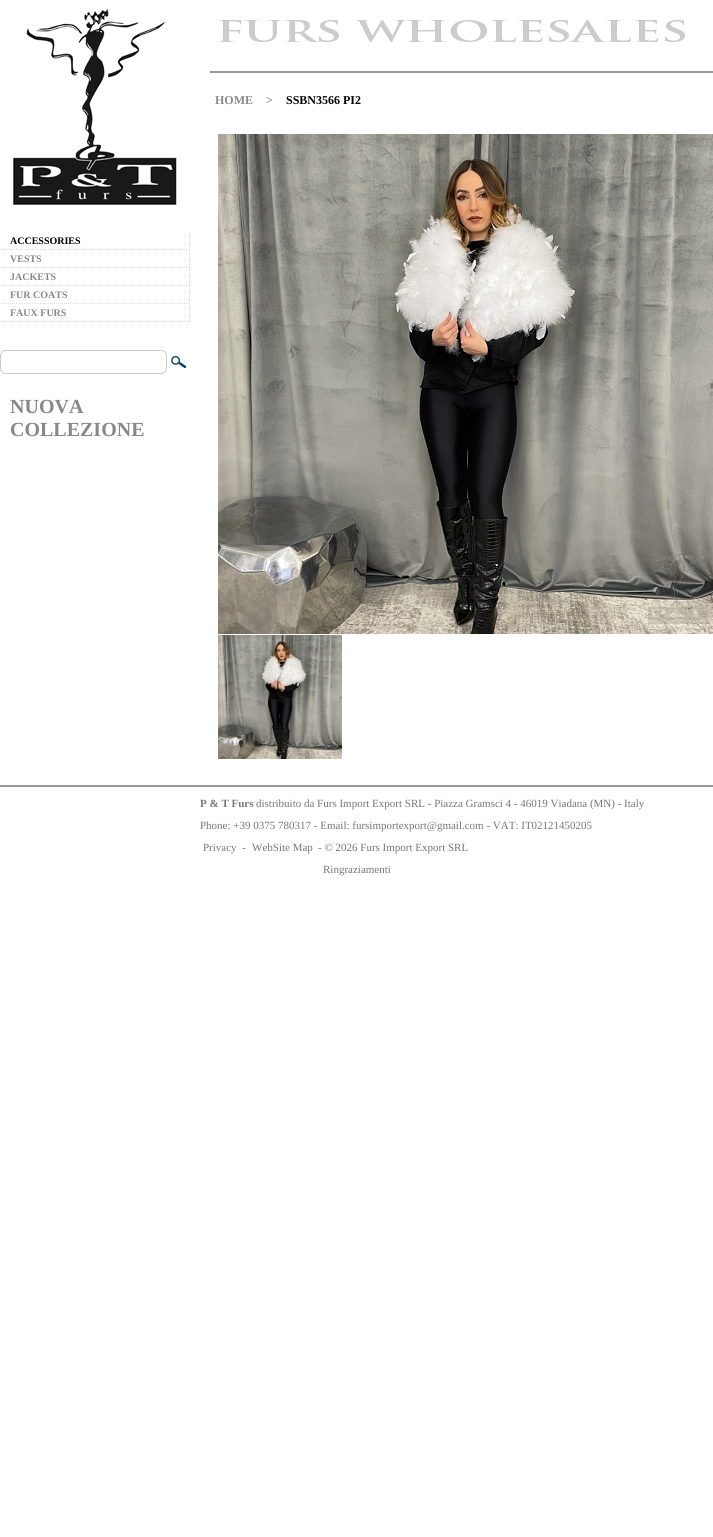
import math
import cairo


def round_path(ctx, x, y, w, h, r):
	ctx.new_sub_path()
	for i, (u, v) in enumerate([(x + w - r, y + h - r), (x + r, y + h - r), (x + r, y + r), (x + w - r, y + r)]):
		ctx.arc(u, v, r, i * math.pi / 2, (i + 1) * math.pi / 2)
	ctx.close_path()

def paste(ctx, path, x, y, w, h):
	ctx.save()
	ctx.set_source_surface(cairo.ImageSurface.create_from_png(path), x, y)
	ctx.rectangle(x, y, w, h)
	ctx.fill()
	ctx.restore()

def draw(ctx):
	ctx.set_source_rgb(1, 1, 1)
	ctx.paint()
	paste(ctx, 'media/1.png', 218, 20, 467, 22)
	ctx.set_source_rgb(0.6, 0.6, 0.6)
	ctx.rectangle(210, 71, 503, 2)
	ctx.fill()
	ctx.select_font_face('Liberation Serif', cairo.FONT_SLANT_NORMAL, cairo.FONT_WEIGHT_BOLD)
	ctx.set_font_size(12)
	ctx.set_source_rgb(0.533, 0.533, 0.533)
	ctx.move_to(215, 104)
	ctx.show_text('HOME')
	ctx.move_to(266, 104)
	ctx.show_text('>')
	ctx.set_source_rgb(0, 0, 0)
	ctx.move_to(286, 104)
	ctx.show_text('SSBN3566 PI2')
	paste(ctx, 'media/2.png', 218, 134, 495, 500)
	paste(ctx, 'media/3.png', 218, 635, 124, 124)
	paste(ctx, 'media/4.png', 13, 8, 164, 197)
	ctx.new_path()
	ctx.move_to(189.5, 232)
	ctx.line_to(189.5, 250)
	ctx.set_source_rgb(0.867, 0.867, 0.867)
	ctx.set_line_width(1)
	ctx.set_dash([1, 1])
	ctx.stroke()
	ctx.new_path()
	ctx.move_to(0, 249.5)
	ctx.line_to(190, 249.5)
	ctx.stroke()
	ctx.set_font_size(10)
	ctx.set_source_rgb(0, 0, 0)
	ctx.move_to(10, 244)
	ctx.show_text('ACCESSORIES')
	ctx.new_path()
	ctx.move_to(189.5, 250)
	ctx.line_to(189.5, 268)
	ctx.set_source_rgb(0.867, 0.867, 0.867)
	ctx.stroke()
	ctx.new_path()
	ctx.move_to(0, 267.5)
	ctx.line_to(190, 267.5)
	ctx.stroke()
	ctx.set_source_rgb(0.533, 0.533, 0.533)
	ctx.move_to(10, 262)
	ctx.show_text('VESTS')
	ctx.new_path()
	ctx.move_to(189.5, 268)
	ctx.line_to(189.5, 286)
	ctx.set_source_rgb(0.867, 0.867, 0.867)
	ctx.stroke()
	ctx.new_path()
	ctx.move_to(0, 285.5)
	ctx.line_to(190, 285.5)
	ctx.stroke()
	ctx.set_source_rgb(0.533, 0.533, 0.533)
	ctx.move_to(10, 280)
	ctx.show_text('JACKETS')
	ctx.new_path()
	ctx.move_to(189.5, 286)
	ctx.line_to(189.5, 304)
	ctx.set_source_rgb(0.867, 0.867, 0.867)
	ctx.stroke()
	ctx.new_path()
	ctx.move_to(0, 303.5)
	ctx.line_to(190, 303.5)
	ctx.stroke()
	ctx.set_source_rgb(0.533, 0.533, 0.533)
	ctx.move_to(10, 298)
	ctx.show_text('FUR COATS')
	ctx.new_path()
	ctx.move_to(189.5, 304)
	ctx.line_to(189.5, 322)
	ctx.set_source_rgb(0.867, 0.867, 0.867)
	ctx.stroke()
	ctx.new_path()
	ctx.move_to(0, 321.5)
	ctx.line_to(190, 321.5)
	ctx.stroke()
	ctx.set_source_rgb(0.533, 0.533, 0.533)
	ctx.move_to(10, 316)
	ctx.show_text('FAUX FURS')
	round_path(ctx, 0.5, 350.5, 166, 23, 5.5)
	ctx.set_source_rgb(0.8, 0.8, 0.8)
	ctx.set_dash([])
	ctx.stroke()
	paste(ctx, 'media/5.png', 171, 356, 16, 12)
	ctx.set_font_size(20)
	ctx.set_source_rgb(0.533, 0.533, 0.533)
	ctx.move_to(10, 413)
	ctx.show_text('NUOVA')
	ctx.move_to(10, 436)
	ctx.show_text('COLLEZIONE')
	ctx.set_source_rgb(0.6, 0.6, 0.6)
	ctx.rectangle(0, 785, 713, 2)
	ctx.fill()
	ctx.set_font_size(11)
	ctx.set_source_rgb(0.467, 0.467, 0.467)
	ctx.move_to(200, 807)
	ctx.show_text('P & T Furs')
	ctx.select_font_face('Liberation Serif')
	for x, y, s in [
		(256, 807, 'distribuito da Furs Import Export SRL - Piazza Gramsci 4 - 46019 Viadana (MN) - Italy'),
		(200, 829, 'Phone: +39 0375 780317 - Email: fursimportexport@gmail.com - VAT: IT02121450205'),
		(203, 851, 'Privacy'),
		(242, 851, '-'),
		(252, 851, 'WebSite Map'),
		(318, 851, '- © 2026 Furs Import Export SRL'),
		(323, 873, 'Ringraziamenti'),
	]:
		ctx.move_to(x, y)
		ctx.show_text(s)


surface = cairo.ImageSurface(cairo.FORMAT_RGB24, 713, 1537)
ctx = cairo.Context(surface)
options = cairo.FontOptions()
options.set_hint_metrics(cairo.HINT_METRICS_OFF)
options.set_hint_style(cairo.HINT_STYLE_NONE)
ctx.set_font_options(options)
ctx.set_miter_limit(4)
draw(ctx)
surface.write_to_png('image.png')
